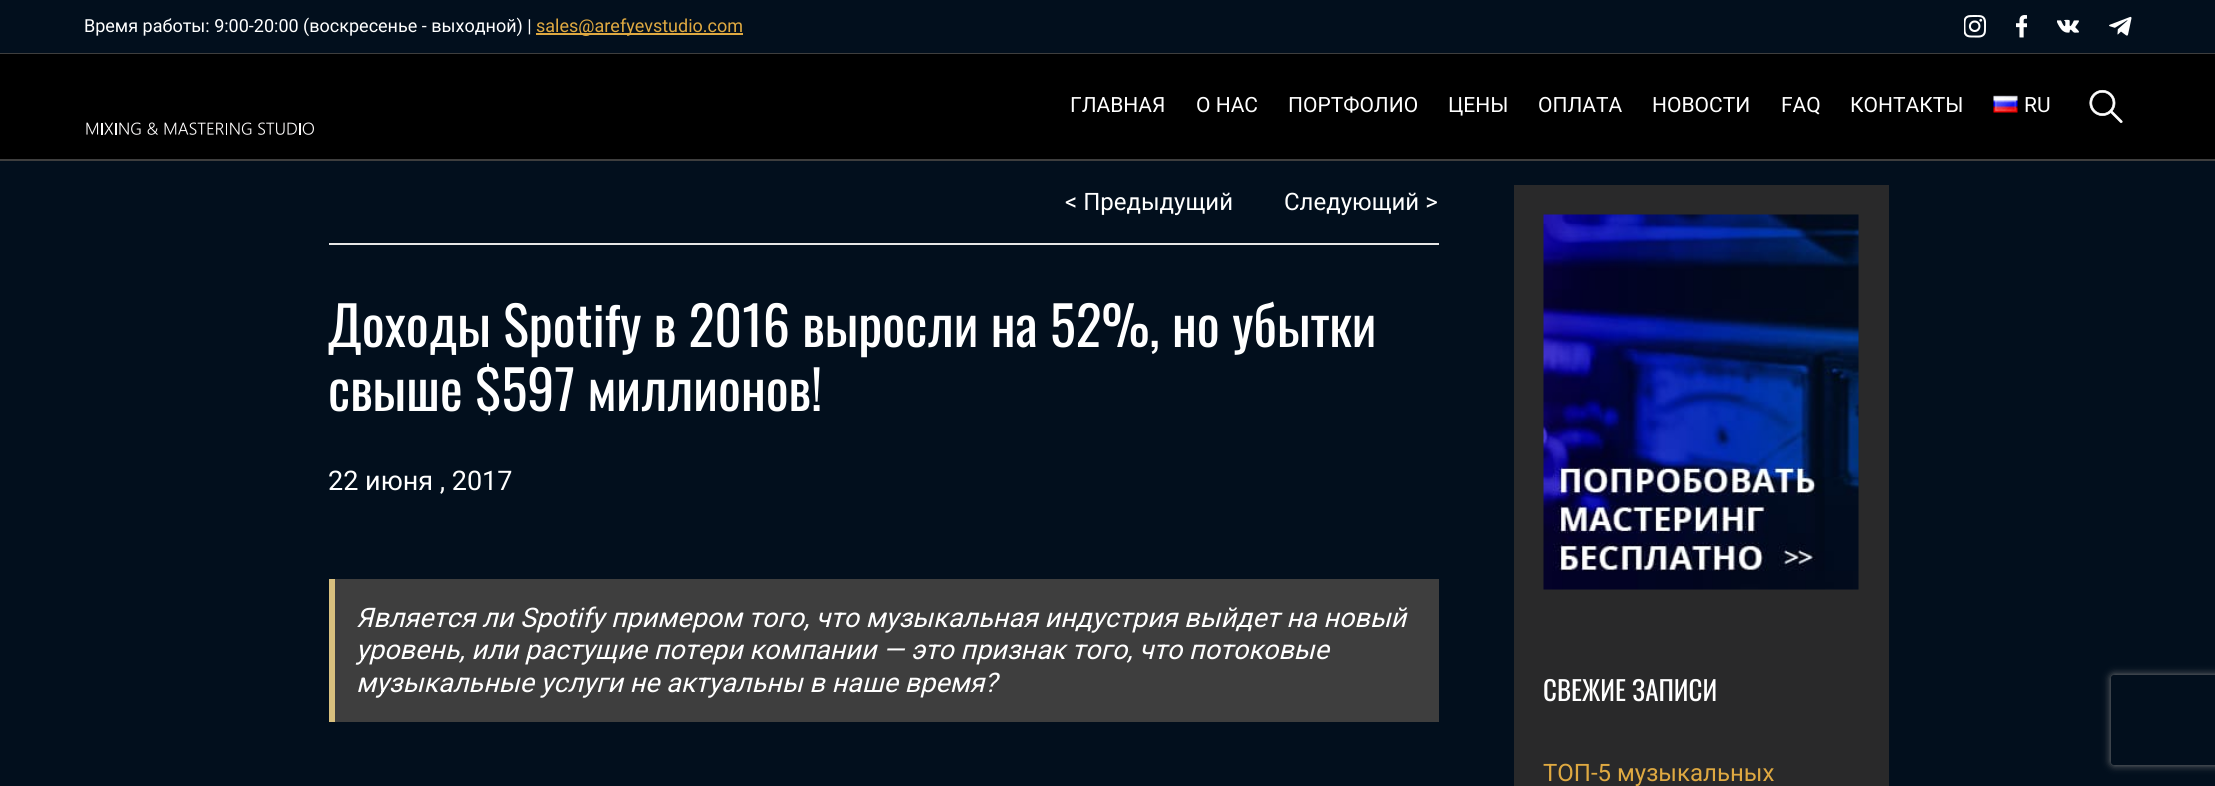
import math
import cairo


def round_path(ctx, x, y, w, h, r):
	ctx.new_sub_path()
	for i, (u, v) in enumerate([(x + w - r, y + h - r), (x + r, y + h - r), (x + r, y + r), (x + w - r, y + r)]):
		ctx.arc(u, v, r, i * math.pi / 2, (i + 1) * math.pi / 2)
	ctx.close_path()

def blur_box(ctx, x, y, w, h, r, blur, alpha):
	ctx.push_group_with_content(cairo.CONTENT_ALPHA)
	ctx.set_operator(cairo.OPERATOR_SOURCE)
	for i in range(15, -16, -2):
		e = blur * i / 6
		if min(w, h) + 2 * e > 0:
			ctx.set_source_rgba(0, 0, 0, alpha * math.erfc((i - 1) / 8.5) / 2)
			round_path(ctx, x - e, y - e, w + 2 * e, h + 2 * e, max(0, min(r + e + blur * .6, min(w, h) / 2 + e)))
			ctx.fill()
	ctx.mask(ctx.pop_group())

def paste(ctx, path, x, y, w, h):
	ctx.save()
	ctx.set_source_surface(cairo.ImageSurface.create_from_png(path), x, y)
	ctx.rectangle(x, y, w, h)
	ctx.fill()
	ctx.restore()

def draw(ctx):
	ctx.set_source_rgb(0.008, 0.059, 0.114)
	ctx.paint()
	ctx.set_source_rgb(0.243, 0.243, 0.243)
	ctx.rectangle(0, 53, 2215, 1)
	ctx.fill()
	ctx.select_font_face('Roboto')
	ctx.set_font_size(18)
	ctx.set_source_rgb(1, 1, 1)
	ctx.move_to(84, 32)
	ctx.show_text('Время работы: 9:00-20:00 (воскресенье - выходной) |')
	ctx.set_source_rgb(0.875, 0.663, 0.255)
	ctx.rectangle(536, 33, 207, 2)
	ctx.fill()
	ctx.move_to(536, 32)
	ctx.show_text('sales@arefyevstudio.com')
	paste(ctx, 'media/1.png', 1964, 15, 22, 23)
	paste(ctx, 'media/2.png', 2016, 15, 11, 23)
	paste(ctx, 'media/3.png', 2057, 19, 22, 14)
	paste(ctx, 'media/4.png', 2109, 16, 23, 20)
	ctx.set_source_rgb(0, 0, 0)
	ctx.rectangle(0, 54, 2215, 105)
	ctx.fill()
	ctx.set_source_rgb(0.243, 0.243, 0.243)
	ctx.rectangle(0, 159, 2215, 2)
	ctx.fill()
	ctx.set_font_size(21)
	ctx.set_source_rgb(1, 1, 1)
	for x, y, s in [
		(1070, 112, 'ГЛАВНАЯ'),
		(1196, 112, 'О НАС'),
		(1288, 112, 'ПОРТФОЛИО'),
		(1448, 112, 'ЦЕНЫ'),
		(1538, 112, 'ОПЛАТА'),
		(1652, 112, 'НОВОСТИ'),
		(1781, 112, 'FAQ'),
		(1850, 112, 'КОНТАКТЫ'),
	]:
		ctx.move_to(x, y)
		ctx.show_text(s)
	paste(ctx, 'media/5.png', 1993, 95, 25, 18)
	ctx.move_to(2024, 112)
	ctx.show_text('RU')
	paste(ctx, 'media/6.png', 2089, 89, 34, 34)
	paste(ctx, 'media/7.png', 86, 122, 228, 13)
	ctx.set_source_rgb(0.906, 0.902, 0.902)
	ctx.rectangle(329, 243, 1110, 2)
	ctx.fill()
	ctx.set_font_size(24)
	ctx.set_source_rgb(1, 1, 1)
	ctx.move_to(1065, 210)
	ctx.show_text('< Предыдущий')
	ctx.move_to(1284, 210)
	ctx.show_text('Следующий >')
	ctx.select_font_face('Oswald')
	ctx.set_font_size(54)
	ctx.move_to(328, 347)
	ctx.show_text('Доходы Spotify в 2016 выросли на 52%, но убытки')
	ctx.move_to(328, 411)
	ctx.show_text('свыше $597 миллионов!')
	ctx.select_font_face('Roboto')
	ctx.set_font_size(27)
	ctx.move_to(328, 490)
	ctx.show_text('22 июня , 2017')
	ctx.set_source_rgb(0.243, 0.243, 0.243)
	ctx.rectangle(335, 579, 1104, 143)
	ctx.fill()
	ctx.set_source_rgb(0.851, 0.753, 0.494)
	ctx.rectangle(329, 579, 6, 143)
	ctx.fill()
	ctx.select_font_face('Roboto', cairo.FONT_SLANT_ITALIC)
	ctx.set_source_rgb(1, 1, 1)
	for x, y, s in [
		(356, 627, 'Является ли Spotify примером того, что музыкальная индустрия выйдет на новый'),
		(356, 659, 'уровень, или растущие потери компании — это признак того, что потоковые'),
		(356, 692, 'музыкальные услуги не актуальны в наше время?'),
	]:
		ctx.move_to(x, y)
		ctx.show_text(s)
	ctx.set_source_rgb(0.161, 0.161, 0.165)
	ctx.rectangle(1514, 185, 375, 601)
	ctx.fill()
	paste(ctx, 'media/8.png', 1543, 214, 316, 376)
	ctx.select_font_face('Oswald')
	ctx.set_source_rgb(1, 1, 1)
	ctx.move_to(1543, 701)
	ctx.show_text('СВЕЖИЕ ЗАПИСИ')
	ctx.select_font_face('Roboto')
	ctx.set_font_size(24)
	ctx.set_source_rgb(0.875, 0.663, 0.255)
	ctx.move_to(1543, 781)
	ctx.show_text('ТОП-5 музыкальных')
	ctx.save()
	ctx.set_fill_rule(cairo.FILL_RULE_EVEN_ODD)
	ctx.new_path()
	ctx.move_to(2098, 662)
	ctx.line_to(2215, 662)
	ctx.line_to(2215, 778)
	ctx.line_to(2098, 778)
	ctx.close_path()
	ctx.move_to(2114, 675)
	ctx.line_to(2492, 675)
	ctx.curve_to(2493.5, 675, 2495, 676.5, 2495, 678)
	ctx.line_to(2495, 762)
	ctx.curve_to(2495, 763.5, 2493.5, 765, 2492, 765)
	ctx.line_to(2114, 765)
	ctx.curve_to(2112.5, 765, 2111, 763.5, 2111, 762)
	ctx.line_to(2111, 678)
	ctx.curve_to(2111, 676.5, 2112.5, 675, 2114, 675)
	ctx.close_path()
	ctx.clip()
	ctx.set_source_rgb(0.502, 0.502, 0.502)
	blur_box(ctx, 2111, 675, 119, 90, 3, 4, 1)
	ctx.restore()


surface = cairo.ImageSurface(cairo.FORMAT_RGB24, 2215, 786)
ctx = cairo.Context(surface)
options = cairo.FontOptions()
options.set_hint_metrics(cairo.HINT_METRICS_OFF)
options.set_hint_style(cairo.HINT_STYLE_NONE)
ctx.set_font_options(options)
ctx.set_miter_limit(4)
draw(ctx)
surface.write_to_png('image.png')
